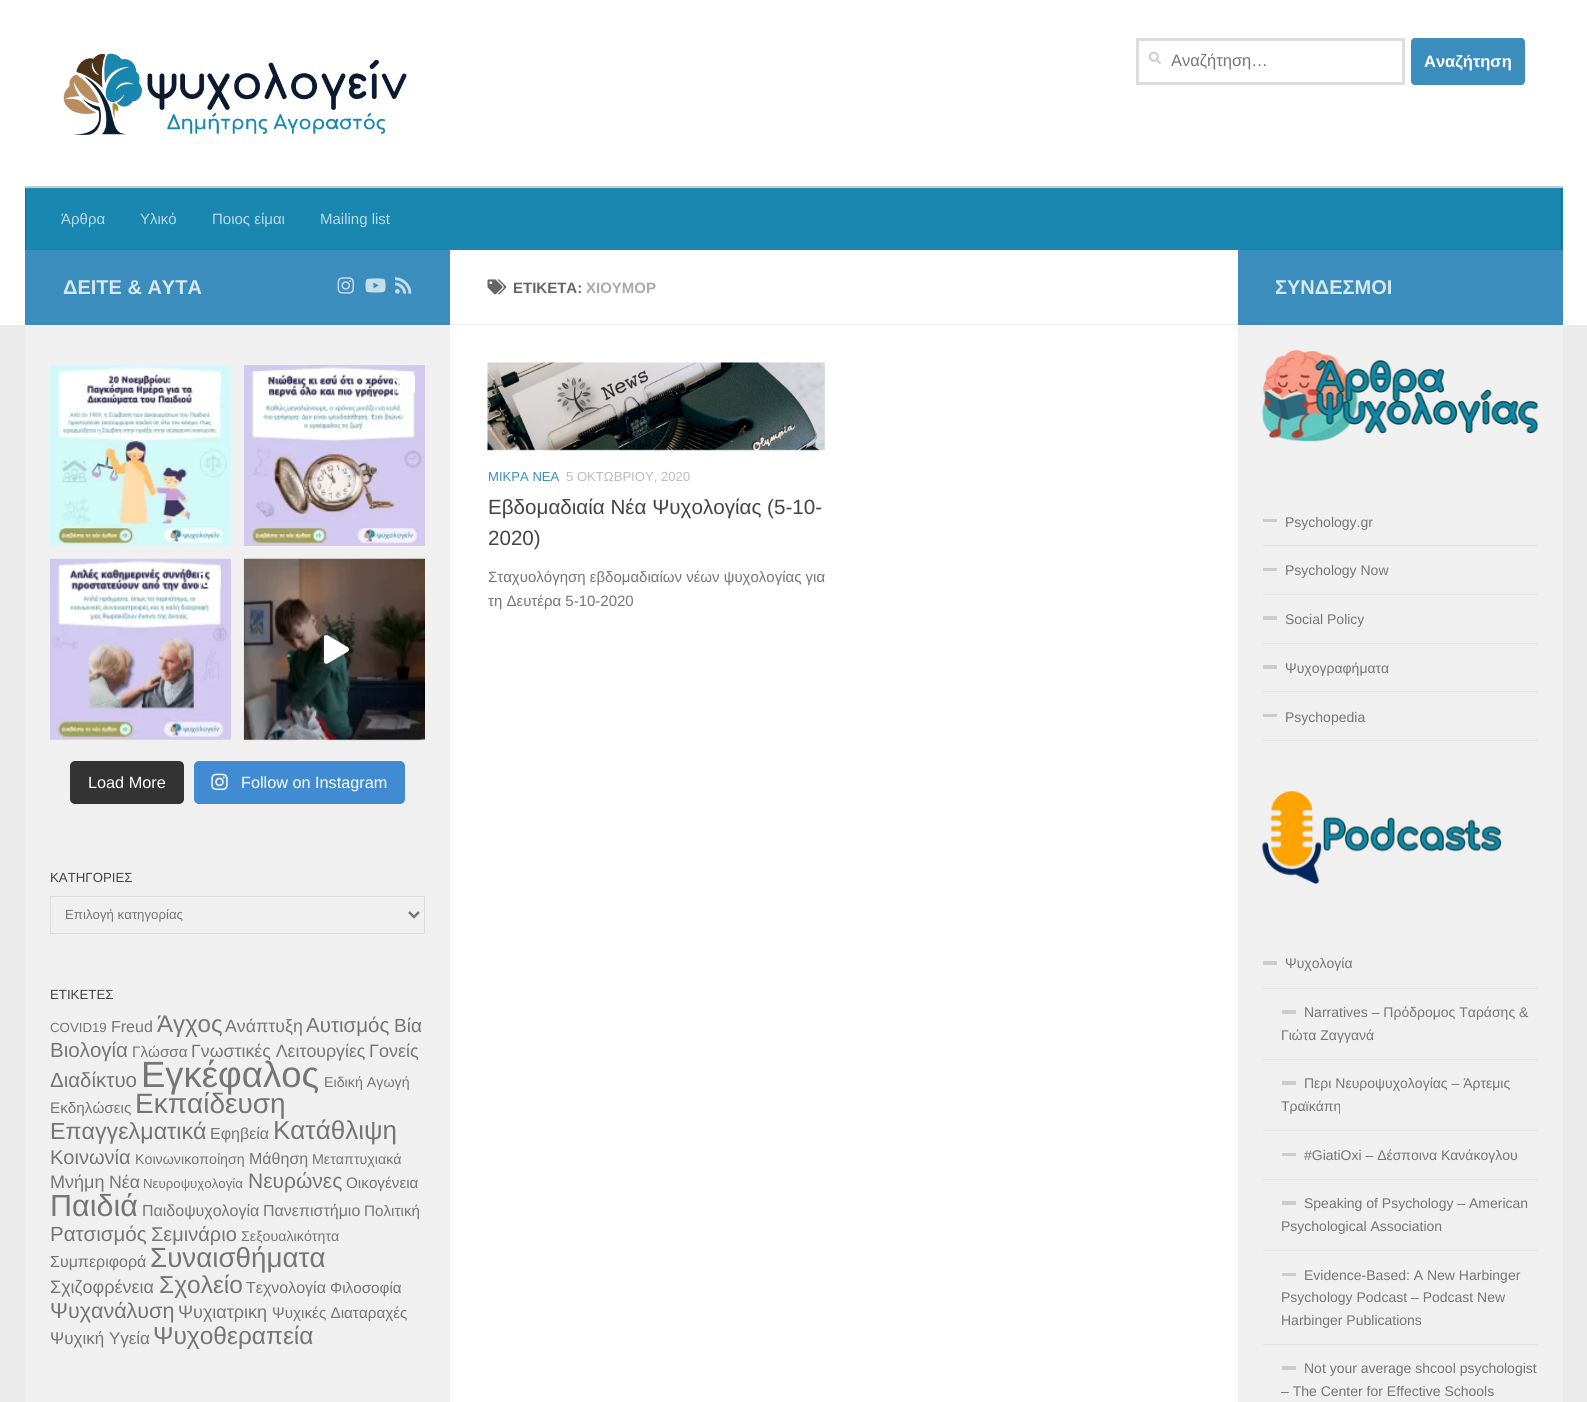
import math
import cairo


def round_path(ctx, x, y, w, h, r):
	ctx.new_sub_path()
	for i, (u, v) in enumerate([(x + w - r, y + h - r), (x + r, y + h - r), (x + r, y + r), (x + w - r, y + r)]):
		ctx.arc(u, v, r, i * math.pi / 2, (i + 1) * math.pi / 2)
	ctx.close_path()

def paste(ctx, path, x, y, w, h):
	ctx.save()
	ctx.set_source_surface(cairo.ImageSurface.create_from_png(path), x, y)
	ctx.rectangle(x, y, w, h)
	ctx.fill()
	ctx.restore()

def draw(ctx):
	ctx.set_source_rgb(0.918, 0.918, 0.918)
	ctx.paint()
	ctx.set_source_rgb(1, 1, 1)
	ctx.rectangle(0, 0, 1587, 325)
	ctx.fill()
	paste(ctx, 'media/1.png', 63, 53, 344, 82)
	ctx.rectangle(1137.5, 39.5, 266, 44)
	ctx.set_source_rgb(0.867, 0.867, 0.867)
	ctx.set_line_width(3)
	ctx.stroke()
	paste(ctx, 'media/2.png', 1148, 51, 13, 13)
	ctx.select_font_face('Liberation Sans')
	ctx.set_font_size(16.5)
	ctx.set_source_rgb(0.459, 0.459, 0.459)
	ctx.move_to(1171, 66)
	ctx.show_text('Αναζήτηση…')
	ctx.set_source_rgb(0.231, 0.553, 0.741)
	round_path(ctx, 1411, 38, 114, 47, 4)
	ctx.fill()
	ctx.select_font_face('Liberation Sans', cairo.FONT_SLANT_NORMAL, cairo.FONT_WEIGHT_BOLD)
	ctx.set_source_rgb(1, 1, 1)
	ctx.move_to(1424, 67)
	ctx.show_text('Αναζήτηση')
	ctx.set_source_rgb(0.8, 0.8, 0.8)
	ctx.new_path()
	ctx.move_to(25, 186)
	ctx.line_to(25, 188)
	ctx.line_to(1562, 188)
	ctx.line_to(1562, 249)
	ctx.line_to(1563, 249)
	ctx.line_to(1563, 186)
	ctx.close_path()
	ctx.fill()
	ctx.set_source_rgb(0.098, 0.529, 0.686)
	ctx.rectangle(26, 188, 1537, 62)
	ctx.fill()
	ctx.set_source_rgb(0.078, 0.424, 0.549)
	ctx.rectangle(1561, 188, 1, 62)
	ctx.rectangle(25, 188, 1, 62)
	ctx.fill()
	ctx.set_source_rgba(1, 1, 1, 0.05)
	ctx.rectangle(25, 188, 1538, 1)
	ctx.fill()
	ctx.select_font_face('Liberation Sans')
	ctx.set_font_size(15)
	ctx.set_source_rgb(0.729, 0.859, 0.906)
	for x, y, s in [
		(61, 224, 'Άρθρα'),
		(140, 224, 'Υλικό'),
		(212, 224, 'Ποιος είμαι'),
		(320, 224, 'Mailing list'),
	]:
		ctx.move_to(x, y)
		ctx.show_text(s)
	ctx.set_source_rgb(1, 1, 1)
	ctx.rectangle(450, 325, 788, 1077)
	ctx.fill()
	ctx.set_source_rgb(0.231, 0.553, 0.741)
	ctx.rectangle(25, 250, 425, 75)
	ctx.fill()
	ctx.select_font_face('Liberation Sans', cairo.FONT_SLANT_NORMAL, cairo.FONT_WEIGHT_BOLD)
	ctx.set_font_size(20)
	ctx.set_source_rgb(0.847, 0.91, 0.949)
	ctx.move_to(63, 294)
	ctx.show_text('ΔΕΙΤΕ & ΑΥΤΑ')
	paste(ctx, 'media/3.png', 337, 277, 17, 17)
	paste(ctx, 'media/4.png', 365, 278, 21, 15)
	paste(ctx, 'media/5.png', 395, 277, 17, 17)
	ctx.set_source_rgb(0.941, 0.941, 0.941)
	ctx.rectangle(25, 325, 425, 1077)
	ctx.fill()
	paste(ctx, 'media/6.png', 50, 365, 181, 181)
	paste(ctx, 'media/7.png', 218, 375, 3, 18)
	paste(ctx, 'media/8.png', 244, 365, 181, 181)
	paste(ctx, 'media/9.png', 393, 375, 22, 22)
	paste(ctx, 'media/10.png', 50, 558, 181, 182)
	paste(ctx, 'media/11.png', 199, 569, 22, 21)
	paste(ctx, 'media/12.png', 243, 558, 182, 183)
	paste(ctx, 'media/13.png', 324, 635, 25, 29)
	ctx.set_source_rgb(0.2, 0.2, 0.2)
	round_path(ctx, 70, 761, 114, 43, 5)
	ctx.fill()
	ctx.select_font_face('Liberation Sans')
	ctx.set_font_size(16.25)
	ctx.set_source_rgb(1, 1, 1)
	ctx.move_to(88, 788)
	ctx.show_text('Load More')
	ctx.set_source_rgb(0.251, 0.545, 0.82)
	round_path(ctx, 194, 761, 211, 43, 5)
	ctx.fill()
	paste(ctx, 'media/14.png', 211, 773, 17, 17)
	ctx.set_source_rgb(1, 1, 1)
	ctx.move_to(241, 788)
	ctx.show_text('Follow on Instagram')
	ctx.set_font_size(13.25)
	ctx.set_source_rgb(0.267, 0.267, 0.267)
	ctx.move_to(50, 882)
	ctx.show_text('KΑΤΗΓΟΡΙΕΣ')
	ctx.rectangle(50.5, 896.5, 374, 37)
	ctx.set_source_rgb(0.867, 0.867, 0.867)
	ctx.set_line_width(1)
	ctx.stroke()
	ctx.new_path()
	ctx.move_to(409, 912)
	ctx.line_to(414, 917)
	ctx.line_to(419, 912)
	ctx.set_source_rgb(0.467, 0.467, 0.467)
	ctx.set_line_width(2.5)
	ctx.stroke()
	ctx.set_source_rgb(0.459, 0.459, 0.459)
	ctx.move_to(65, 919)
	ctx.show_text('Επιλογή κατηγορίας')
	ctx.set_source_rgb(0.267, 0.267, 0.267)
	ctx.move_to(50, 999)
	ctx.show_text('ΕΤΙΚΕΤΕΣ')
	ctx.set_source_rgb(0.459, 0.459, 0.459)
	ctx.move_to(50, 1032)
	ctx.show_text('COVID19')
	ctx.set_font_size(16)
	ctx.move_to(111, 1032)
	ctx.show_text('Freud')
	ctx.set_font_size(24)
	ctx.move_to(157, 1032)
	ctx.show_text('Άγχος')
	ctx.set_font_size(17.75)
	ctx.move_to(225, 1032)
	ctx.show_text('Ανάπτυξη')
	ctx.set_font_size(20.5)
	ctx.move_to(306, 1032)
	ctx.show_text('Αυτισμός')
	ctx.set_font_size(19)
	ctx.move_to(394, 1032)
	ctx.show_text('Βία')
	ctx.set_font_size(20.5)
	ctx.move_to(50, 1057)
	ctx.show_text('Βιολογία')
	ctx.set_font_size(15.25)
	ctx.move_to(132, 1057)
	ctx.show_text('Γλώσσα')
	ctx.set_font_size(17.75)
	ctx.move_to(191, 1057)
	ctx.show_text('Γνωστικές Λειτουργίες')
	ctx.set_font_size(18)
	ctx.move_to(369, 1057)
	ctx.show_text('Γονείς')
	ctx.set_font_size(20.5)
	ctx.move_to(50, 1087)
	ctx.show_text('Διαδίκτυο')
	ctx.set_font_size(36.5)
	ctx.move_to(141, 1087)
	ctx.show_text('Εγκέφαλος')
	ctx.set_font_size(14.25)
	ctx.move_to(324, 1087)
	ctx.show_text('Ειδική Αγωγή')
	ctx.set_font_size(15.25)
	ctx.move_to(50, 1113)
	ctx.show_text('Εκδηλώσεις')
	ctx.set_font_size(28)
	ctx.move_to(135, 1113)
	ctx.show_text('Εκπαίδευση')
	ctx.set_font_size(23.25)
	ctx.move_to(50, 1139)
	ctx.show_text('Επαγγελματικά')
	ctx.set_font_size(16)
	ctx.move_to(210, 1139)
	ctx.show_text('Εφηβεία')
	ctx.set_font_size(26)
	ctx.move_to(273, 1139)
	ctx.show_text('Κατάθλιψη')
	ctx.set_font_size(20)
	ctx.move_to(50, 1164)
	ctx.show_text('Κοινωνία')
	ctx.set_font_size(14.25)
	ctx.move_to(135, 1164)
	ctx.show_text('Κοινωνικοποίηση')
	ctx.set_font_size(16)
	ctx.move_to(249, 1164)
	ctx.show_text('Μάθηση')
	ctx.set_font_size(14.25)
	ctx.move_to(312, 1164)
	ctx.show_text('Μεταπτυχιακά')
	ctx.set_font_size(18)
	ctx.move_to(50, 1188)
	ctx.show_text('Μνήμη')
	ctx.set_font_size(17.75)
	ctx.move_to(109, 1188)
	ctx.show_text('Νέα')
	ctx.set_font_size(13.25)
	ctx.move_to(143, 1188)
	ctx.show_text('Νευροψυχολογία')
	ctx.set_font_size(21)
	ctx.move_to(248, 1188)
	ctx.show_text('Νευρώνες')
	ctx.set_font_size(15.25)
	ctx.move_to(346, 1188)
	ctx.show_text('Οικογένεια')
	ctx.set_font_size(30.5)
	ctx.move_to(50, 1216)
	ctx.show_text('Παιδιά')
	ctx.set_font_size(16)
	ctx.move_to(142, 1216)
	ctx.show_text('Παιδοψυχολογία')
	ctx.move_to(263, 1216)
	ctx.show_text('Πανεπιστήμιο')
	ctx.set_font_size(15.25)
	ctx.move_to(364, 1216)
	ctx.show_text('Πολιτική')
	ctx.set_font_size(20.5)
	ctx.move_to(50, 1241)
	ctx.show_text('Ρατσισμός')
	ctx.set_font_size(20)
	ctx.move_to(151, 1241)
	ctx.show_text('Σεμινάριο')
	ctx.set_font_size(14.25)
	ctx.move_to(241, 1241)
	ctx.show_text('Σεξουαλικότητα')
	ctx.set_font_size(16)
	ctx.move_to(50, 1267)
	ctx.show_text('Συμπεριφορά')
	ctx.set_font_size(27.75)
	ctx.move_to(150, 1267)
	ctx.show_text('Συναισθήματα')
	ctx.set_font_size(18)
	ctx.move_to(50, 1293)
	ctx.show_text('Σχιζοφρένεια')
	ctx.set_font_size(24.5)
	ctx.move_to(159, 1293)
	ctx.show_text('Σχολείο')
	ctx.set_font_size(16)
	ctx.move_to(246, 1293)
	ctx.show_text('Τεχνολογία')
	ctx.set_font_size(15.25)
	ctx.move_to(330, 1293)
	ctx.show_text('Φιλοσοφία')
	ctx.set_font_size(21.5)
	ctx.move_to(50, 1318)
	ctx.show_text('Ψυχανάλυση')
	ctx.set_font_size(18)
	ctx.move_to(178, 1318)
	ctx.show_text('Ψυχιατρικη')
	ctx.set_font_size(15.25)
	ctx.move_to(272, 1318)
	ctx.show_text('Ψυχικές Διαταραχές')
	ctx.set_font_size(17)
	ctx.move_to(50, 1344)
	ctx.show_text('Ψυχική Υγεία')
	ctx.set_font_size(24.5)
	ctx.move_to(153, 1344)
	ctx.show_text('Ψυχοθεραπεία')
	ctx.set_source_rgb(0.933, 0.933, 0.933)
	ctx.rectangle(450, 324, 788, 1)
	ctx.fill()
	paste(ctx, 'media/15.png', 487, 279, 20, 16)
	ctx.select_font_face('Liberation Sans', cairo.FONT_SLANT_NORMAL, cairo.FONT_WEIGHT_BOLD)
	ctx.set_font_size(15)
	ctx.set_source_rgb(0.4, 0.4, 0.4)
	ctx.move_to(513, 293)
	ctx.show_text('ΕΤΙΚΕΤΑ:')
	ctx.set_source_rgb(0.667, 0.667, 0.667)
	ctx.move_to(586, 293)
	ctx.show_text('ΧΙΟΥΜΟΡ')
	paste(ctx, 'media/16.png', 487, 362, 338, 89)
	ctx.select_font_face('Liberation Sans')
	ctx.set_font_size(13.1)
	ctx.set_source_rgb(0.231, 0.553, 0.741)
	ctx.move_to(488, 481)
	ctx.show_text('ΜΙΚΡΑ ΝΕΑ')
	ctx.set_source_rgb(0.733, 0.733, 0.733)
	ctx.move_to(566, 481)
	ctx.show_text('5 ΟΚΤΩΒΡΙΟΥ, 2020')
	ctx.set_font_size(20.6)
	ctx.set_source_rgb(0.267, 0.267, 0.267)
	ctx.move_to(488, 514)
	ctx.show_text('Εβδομαδιαία Νέα Ψυχολογίας (5-10-')
	ctx.move_to(488, 545)
	ctx.show_text('2020)')
	ctx.set_font_size(15)
	ctx.set_source_rgb(0.459, 0.459, 0.459)
	ctx.move_to(488, 582)
	ctx.show_text('Σταχυολόγηση εβδομαδιαίων νέων ψυχολογίας για')
	ctx.move_to(488, 606)
	ctx.show_text('τη Δευτέρα 5-10-2020')
	ctx.set_source_rgb(0.231, 0.553, 0.741)
	ctx.rectangle(1238, 250, 325, 75)
	ctx.fill()
	ctx.select_font_face('Liberation Sans', cairo.FONT_SLANT_NORMAL, cairo.FONT_WEIGHT_BOLD)
	ctx.set_font_size(20)
	ctx.set_source_rgb(0.847, 0.91, 0.949)
	ctx.move_to(1275, 294)
	ctx.show_text('ΣΥΝΔΕΣΜΟΙ')
	ctx.set_source_rgb(0.941, 0.941, 0.941)
	ctx.rectangle(1238, 325, 325, 1077)
	ctx.fill()
	paste(ctx, 'media/17.png', 1262, 350, 276, 92)
	ctx.set_source_rgb(0.894, 0.894, 0.894)
	ctx.rectangle(1263, 545, 275, 1)
	ctx.fill()
	ctx.set_source_rgb(0.8, 0.8, 0.8)
	ctx.rectangle(1263, 519, 14, 3)
	ctx.fill()
	ctx.select_font_face('Liberation Sans')
	ctx.set_font_size(14)
	ctx.set_source_rgb(0.459, 0.459, 0.459)
	ctx.move_to(1285, 527)
	ctx.show_text('Psychology.gr')
	ctx.set_source_rgb(0.894, 0.894, 0.894)
	ctx.rectangle(1263, 594, 275, 1)
	ctx.fill()
	ctx.set_source_rgb(0.8, 0.8, 0.8)
	ctx.rectangle(1263, 568, 14, 3)
	ctx.fill()
	ctx.set_source_rgb(0.459, 0.459, 0.459)
	ctx.move_to(1285, 575)
	ctx.show_text('Psychology Now')
	ctx.set_source_rgb(0.894, 0.894, 0.894)
	ctx.rectangle(1263, 643, 275, 1)
	ctx.fill()
	ctx.set_source_rgb(0.8, 0.8, 0.8)
	ctx.rectangle(1263, 616, 14, 4)
	ctx.fill()
	ctx.set_source_rgb(0.459, 0.459, 0.459)
	ctx.move_to(1285, 624)
	ctx.show_text('Social Policy')
	ctx.set_source_rgb(0.894, 0.894, 0.894)
	ctx.rectangle(1263, 691, 275, 1)
	ctx.fill()
	ctx.set_source_rgb(0.8, 0.8, 0.8)
	ctx.rectangle(1263, 665, 14, 4)
	ctx.fill()
	ctx.set_source_rgb(0.459, 0.459, 0.459)
	ctx.move_to(1285, 673)
	ctx.show_text('Ψυχογραφήματα')
	ctx.set_source_rgb(0.894, 0.894, 0.894)
	ctx.rectangle(1263, 740, 275, 1)
	ctx.fill()
	ctx.set_source_rgb(0.8, 0.8, 0.8)
	ctx.rectangle(1263, 714, 14, 3)
	ctx.fill()
	ctx.set_source_rgb(0.459, 0.459, 0.459)
	ctx.move_to(1285, 722)
	ctx.show_text('Psychopedia')
	paste(ctx, 'media/18.png', 1262, 791, 240, 93)
	ctx.set_source_rgb(0.894, 0.894, 0.894)
	ctx.rectangle(1263, 988, 275, 1)
	ctx.fill()
	ctx.set_source_rgb(0.8, 0.8, 0.8)
	ctx.rectangle(1263, 961, 14, 4)
	ctx.fill()
	ctx.set_source_rgb(0.459, 0.459, 0.459)
	ctx.move_to(1285, 968)
	ctx.show_text('Ψυχολογία')
	ctx.set_source_rgb(0.894, 0.894, 0.894)
	ctx.rectangle(1263, 1059, 275, 1)
	ctx.fill()
	ctx.set_source_rgb(0.8, 0.8, 0.8)
	ctx.rectangle(1282, 1010, 14, 4)
	ctx.fill()
	ctx.set_source_rgb(0.459, 0.459, 0.459)
	ctx.move_to(1304, 1017)
	ctx.show_text('Narratives – Πρόδρομος Ταράσης &')
	ctx.move_to(1281, 1040)
	ctx.show_text('Γιώτα Ζαγγανά')
	ctx.set_source_rgb(0.894, 0.894, 0.894)
	ctx.rectangle(1263, 1130, 275, 1)
	ctx.fill()
	ctx.set_source_rgb(0.8, 0.8, 0.8)
	ctx.rectangle(1282, 1081, 14, 4)
	ctx.fill()
	ctx.set_source_rgb(0.459, 0.459, 0.459)
	ctx.move_to(1304, 1088)
	ctx.show_text('Περι Νευροψυχολογίας – Άρτεμις')
	ctx.move_to(1281, 1111)
	ctx.show_text('Τραϊκάπη')
	ctx.set_source_rgb(0.894, 0.894, 0.894)
	ctx.rectangle(1263, 1179, 275, 1)
	ctx.fill()
	ctx.set_source_rgb(0.8, 0.8, 0.8)
	ctx.rectangle(1282, 1153, 14, 3)
	ctx.fill()
	ctx.set_source_rgb(0.459, 0.459, 0.459)
	ctx.move_to(1304, 1160)
	ctx.show_text('#GiatiOxi – Δέσποινα Κανάκογλου')
	ctx.set_source_rgb(0.894, 0.894, 0.894)
	ctx.rectangle(1263, 1250, 275, 1)
	ctx.fill()
	ctx.set_source_rgb(0.8, 0.8, 0.8)
	ctx.rectangle(1282, 1201, 14, 4)
	ctx.fill()
	ctx.set_source_rgb(0.459, 0.459, 0.459)
	ctx.move_to(1304, 1208)
	ctx.show_text('Speaking of Psychology – American')
	ctx.move_to(1281, 1231)
	ctx.show_text('Psychological Association')
	ctx.set_source_rgb(0.894, 0.894, 0.894)
	ctx.rectangle(1263, 1344, 275, 1)
	ctx.fill()
	ctx.set_source_rgb(0.8, 0.8, 0.8)
	ctx.rectangle(1282, 1273, 14, 3)
	ctx.fill()
	ctx.set_source_rgb(0.459, 0.459, 0.459)
	for x, y, s in [
		(1304, 1280, 'Evidence-Based: A New Harbinger'),
		(1281, 1302, 'Psychology Podcast – Podcast New'),
		(1281, 1325, 'Harbinger Publications'),
	]:
		ctx.move_to(x, y)
		ctx.show_text(s)
	ctx.set_source_rgb(0.8, 0.8, 0.8)
	ctx.rectangle(1282, 1366, 14, 4)
	ctx.fill()
	ctx.set_source_rgb(0.459, 0.459, 0.459)
	ctx.move_to(1304, 1373)
	ctx.show_text('Not your average shcool psychologist')
	ctx.move_to(1281, 1396)
	ctx.show_text('– The Center for Effective Schools')


surface = cairo.ImageSurface(cairo.FORMAT_RGB24, 1587, 1402)
ctx = cairo.Context(surface)
options = cairo.FontOptions()
options.set_hint_metrics(cairo.HINT_METRICS_OFF)
options.set_hint_style(cairo.HINT_STYLE_NONE)
ctx.set_font_options(options)
ctx.set_miter_limit(4)
draw(ctx)
surface.write_to_png('image.png')
